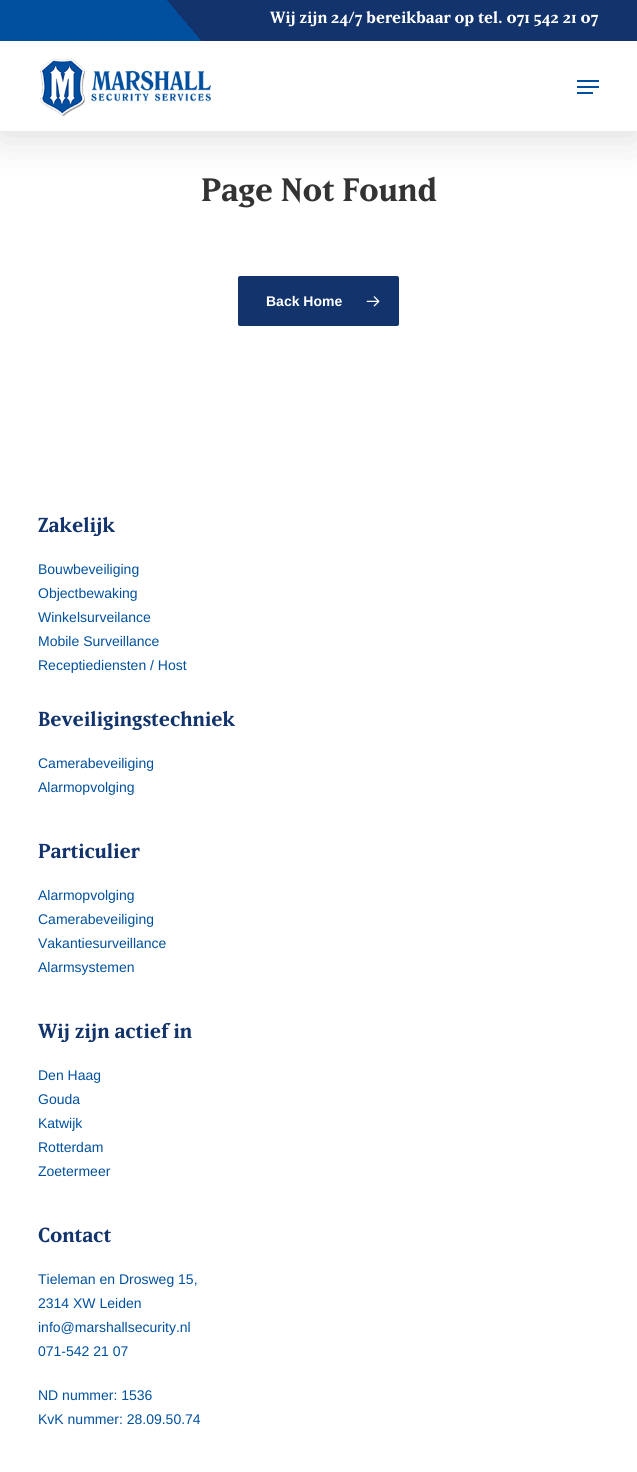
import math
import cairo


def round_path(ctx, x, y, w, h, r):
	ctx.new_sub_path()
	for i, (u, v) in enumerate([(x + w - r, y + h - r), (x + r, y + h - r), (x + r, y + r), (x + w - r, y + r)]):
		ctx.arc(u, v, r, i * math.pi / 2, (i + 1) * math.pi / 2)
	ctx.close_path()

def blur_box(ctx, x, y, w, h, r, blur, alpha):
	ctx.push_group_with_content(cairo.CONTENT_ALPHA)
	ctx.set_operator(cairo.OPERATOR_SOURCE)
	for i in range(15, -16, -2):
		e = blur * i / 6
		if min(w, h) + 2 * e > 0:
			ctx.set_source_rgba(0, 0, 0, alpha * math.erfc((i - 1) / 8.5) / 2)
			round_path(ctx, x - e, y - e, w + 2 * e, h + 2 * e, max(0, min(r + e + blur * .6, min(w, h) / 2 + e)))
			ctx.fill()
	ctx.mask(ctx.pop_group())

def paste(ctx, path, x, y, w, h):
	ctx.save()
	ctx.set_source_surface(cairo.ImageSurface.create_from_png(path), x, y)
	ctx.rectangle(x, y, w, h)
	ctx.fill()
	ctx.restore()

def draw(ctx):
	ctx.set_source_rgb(1, 1, 1)
	ctx.paint()
	ctx.set_source_rgb(0, 0, 0)
	blur_box(ctx, 0, 3, 637, 131, 0, 22.5, 0.15)
	ctx.set_source_rgb(1, 1, 1)
	ctx.rectangle(0, 41, 637, 90)
	ctx.fill()
	gradient = cairo.LinearGradient(121, 186, 516, -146)
	gradient.add_color_stop_rgba(0.3, 0, 0.314, 0.624, 1)
	gradient.add_color_stop_rgba(0.3, 0.071, 0.2, 0.42, 1)
	ctx.set_source(gradient)
	ctx.rectangle(0, 0, 637, 41)
	ctx.fill()
	ctx.select_font_face('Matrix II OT', cairo.FONT_SLANT_NORMAL, cairo.FONT_WEIGHT_BOLD)
	ctx.set_font_size(16)
	ctx.set_source_rgb(1, 1, 1)
	ctx.move_to(270, 23)
	ctx.show_text('Wij zijn 24/7 bereikbaar op tel. 071 542 21 07')
	paste(ctx, 'media/1.png', 39, 58, 172, 59)
	ctx.set_source_rgb(0, 0.314, 0.624)
	ctx.rectangle(577, 80, 22, 2)
	ctx.rectangle(577, 92, 16, 2)
	ctx.rectangle(577, 86, 22, 2)
	ctx.fill()
	ctx.set_font_size(32)
	ctx.set_source_rgb(0.2, 0.2, 0.2)
	ctx.move_to(201, 201)
	ctx.show_text('Page Not Found')
	ctx.set_source_rgb(0.071, 0.2, 0.42)
	round_path(ctx, 238, 276, 161, 50, 2)
	ctx.fill()
	ctx.select_font_face('Liberation Sans', cairo.FONT_SLANT_NORMAL, cairo.FONT_WEIGHT_BOLD)
	ctx.set_font_size(14)
	ctx.set_source_rgb(1, 1, 1)
	ctx.move_to(266, 306)
	ctx.show_text('Back Home')
	paste(ctx, 'media/2.png', 366, 296, 14, 11)
	ctx.select_font_face('Matrix II OT', cairo.FONT_SLANT_NORMAL, cairo.FONT_WEIGHT_BOLD)
	ctx.set_font_size(20)
	ctx.set_source_rgb(0.071, 0.2, 0.42)
	ctx.move_to(38, 532)
	ctx.show_text('Zakelijk')
	ctx.select_font_face('Liberation Sans')
	ctx.set_font_size(14)
	ctx.set_source_rgb(0, 0.314, 0.624)
	for x, y, s in [
		(38, 574, 'Bouwbeveiliging'),
		(38, 598, 'Objectbewaking'),
		(38, 622, 'Winkelsurveilance'),
		(38, 646, 'Mobile Surveillance'),
		(38, 670, 'Receptiediensten / Host'),
	]:
		ctx.move_to(x, y)
		ctx.show_text(s)
	ctx.select_font_face('Matrix II OT', cairo.FONT_SLANT_NORMAL, cairo.FONT_WEIGHT_BOLD)
	ctx.set_font_size(20)
	ctx.set_source_rgb(0.071, 0.2, 0.42)
	ctx.move_to(38, 726)
	ctx.show_text('Beveiligingstechniek')
	ctx.select_font_face('Liberation Sans')
	ctx.set_font_size(14)
	ctx.set_source_rgb(0, 0.314, 0.624)
	ctx.move_to(38, 768)
	ctx.show_text('Camerabeveiliging')
	ctx.move_to(38, 792)
	ctx.show_text('Alarmopvolging')
	ctx.select_font_face('Matrix II OT', cairo.FONT_SLANT_NORMAL, cairo.FONT_WEIGHT_BOLD)
	ctx.set_font_size(20)
	ctx.set_source_rgb(0.071, 0.2, 0.42)
	ctx.move_to(38, 858)
	ctx.show_text('Particulier')
	ctx.select_font_face('Liberation Sans')
	ctx.set_font_size(14)
	ctx.set_source_rgb(0, 0.314, 0.624)
	for x, y, s in [
		(38, 900, 'Alarmopvolging'),
		(38, 924, 'Camerabeveiliging'),
		(38, 948, 'Vakantiesurveillance'),
		(38, 972, 'Alarmsystemen'),
	]:
		ctx.move_to(x, y)
		ctx.show_text(s)
	ctx.select_font_face('Matrix II OT', cairo.FONT_SLANT_NORMAL, cairo.FONT_WEIGHT_BOLD)
	ctx.set_font_size(20)
	ctx.set_source_rgb(0.071, 0.2, 0.42)
	ctx.move_to(38, 1038)
	ctx.show_text('Wij zijn actief in')
	ctx.select_font_face('Liberation Sans')
	ctx.set_font_size(14)
	ctx.set_source_rgb(0, 0.314, 0.624)
	for x, y, s in [
		(38, 1080, 'Den Haag'),
		(38, 1104, 'Gouda'),
		(38, 1128, 'Katwijk'),
		(38, 1152, 'Rotterdam'),
		(38, 1176, 'Zoetermeer'),
	]:
		ctx.move_to(x, y)
		ctx.show_text(s)
	ctx.select_font_face('Matrix II OT', cairo.FONT_SLANT_NORMAL, cairo.FONT_WEIGHT_BOLD)
	ctx.set_font_size(20)
	ctx.set_source_rgb(0.071, 0.2, 0.42)
	ctx.move_to(38, 1242)
	ctx.show_text('Contact')
	ctx.select_font_face('Liberation Sans')
	ctx.set_font_size(14)
	ctx.set_source_rgb(0, 0.314, 0.624)
	for x, y, s in [
		(38, 1284, 'Tieleman en Drosweg 15,'),
		(38, 1308, '2314 XW Leiden'),
		(38, 1332, 'info@marshallsecurity.nl'),
		(38, 1356, '071-542 21 07'),
		(38, 1400, 'ND nummer: 1536'),
		(38, 1424, 'KvK nummer: 28.09.50.74'),
	]:
		ctx.move_to(x, y)
		ctx.show_text(s)


surface = cairo.ImageSurface(cairo.FORMAT_RGB24, 637, 1472)
ctx = cairo.Context(surface)
options = cairo.FontOptions()
options.set_hint_metrics(cairo.HINT_METRICS_OFF)
options.set_hint_style(cairo.HINT_STYLE_NONE)
ctx.set_font_options(options)
ctx.set_miter_limit(4)
draw(ctx)
surface.write_to_png('image.png')
